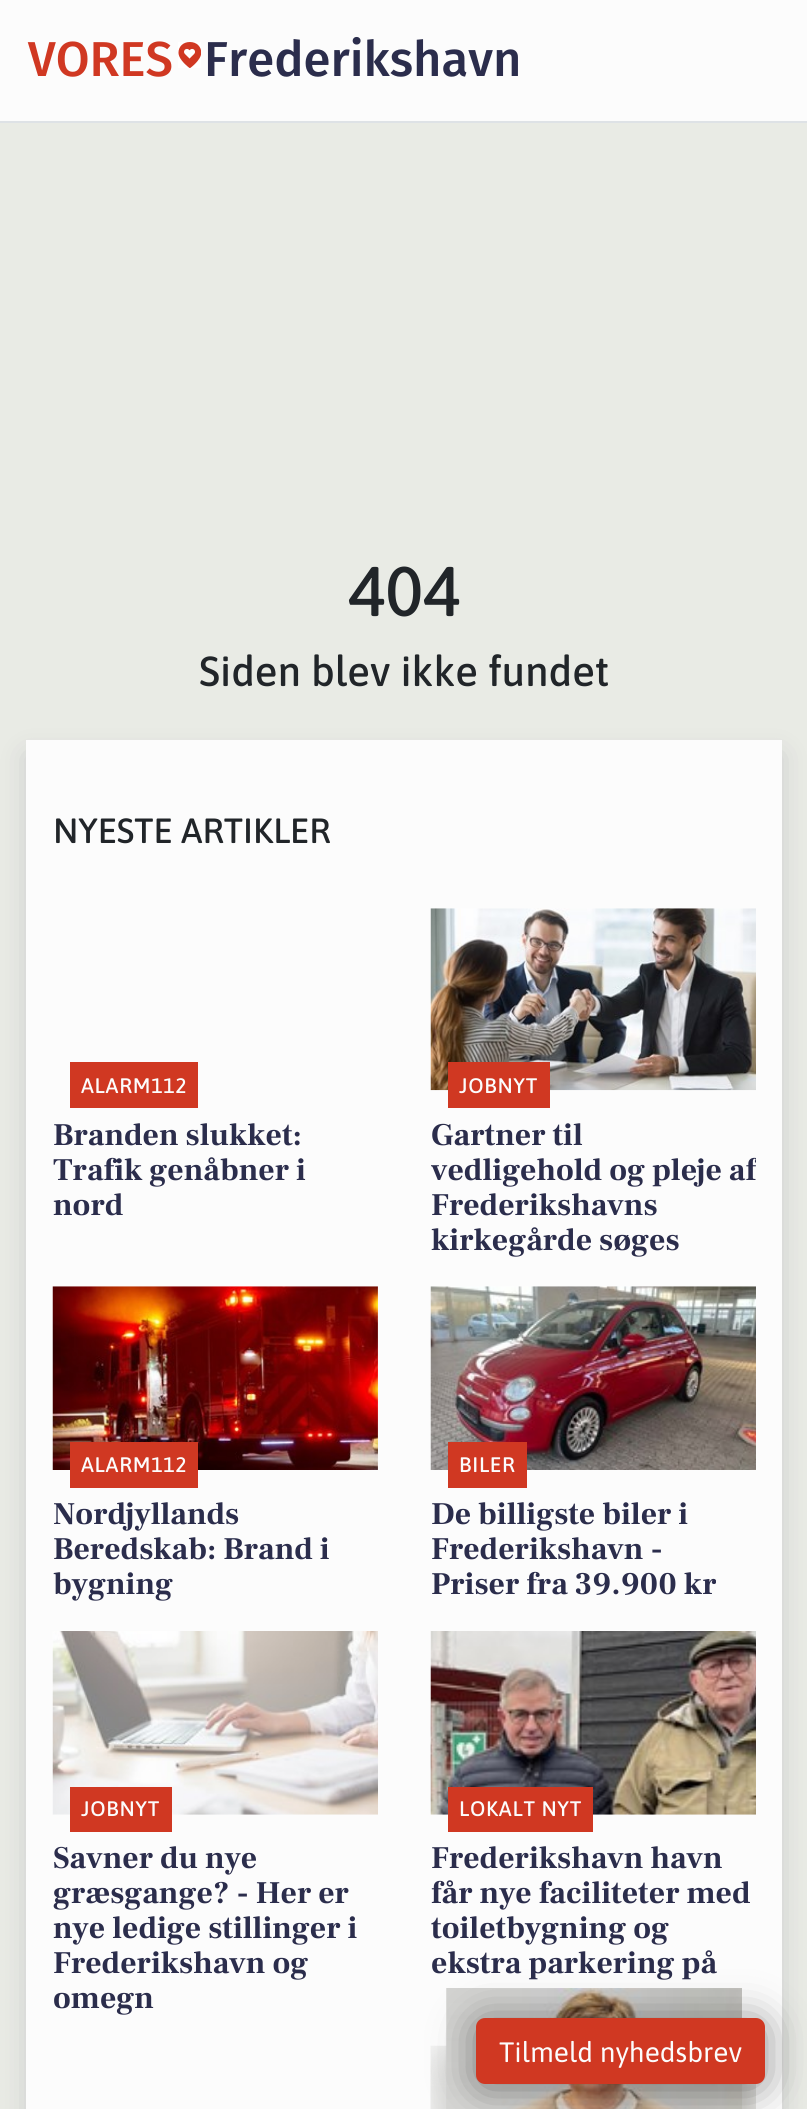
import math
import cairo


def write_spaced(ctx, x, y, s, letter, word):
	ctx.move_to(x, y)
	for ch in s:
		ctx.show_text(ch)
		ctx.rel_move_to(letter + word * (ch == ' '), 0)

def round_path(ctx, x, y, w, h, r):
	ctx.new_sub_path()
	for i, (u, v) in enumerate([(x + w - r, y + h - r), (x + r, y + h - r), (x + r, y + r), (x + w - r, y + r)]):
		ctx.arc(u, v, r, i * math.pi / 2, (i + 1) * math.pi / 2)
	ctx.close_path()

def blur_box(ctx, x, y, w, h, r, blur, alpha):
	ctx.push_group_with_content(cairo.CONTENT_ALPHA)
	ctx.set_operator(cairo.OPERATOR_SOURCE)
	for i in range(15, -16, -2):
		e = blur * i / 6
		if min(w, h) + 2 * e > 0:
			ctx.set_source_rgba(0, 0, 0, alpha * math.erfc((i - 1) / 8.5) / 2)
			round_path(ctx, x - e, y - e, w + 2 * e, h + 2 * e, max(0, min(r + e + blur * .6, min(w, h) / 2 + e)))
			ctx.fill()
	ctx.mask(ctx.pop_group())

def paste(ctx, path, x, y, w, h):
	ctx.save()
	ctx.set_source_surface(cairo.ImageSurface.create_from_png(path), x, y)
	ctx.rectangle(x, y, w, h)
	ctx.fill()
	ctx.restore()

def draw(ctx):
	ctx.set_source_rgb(0.914, 0.918, 0.898)
	ctx.paint()
	ctx.set_source_rgb(0.988, 0.988, 0.988)
	ctx.rectangle(0, 0, 807, 121)
	ctx.fill()
	ctx.set_source_rgb(0.871, 0.886, 0.902)
	ctx.rectangle(0, 121, 807, 2)
	ctx.fill()
	ctx.select_font_face('Fira Sans Medium')
	ctx.set_font_size(49)
	ctx.set_source_rgb(0.816, 0.22, 0.133)
	ctx.move_to(28, 76)
	ctx.show_text('VORES')
	paste(ctx, 'media/1.png', 178, 42, 23, 26)
	ctx.set_source_rgb(0.169, 0.176, 0.298)
	ctx.move_to(204, 76)
	ctx.show_text('Frederikshavn')
	ctx.select_font_face('Asap Medium')
	ctx.set_font_size(70)
	ctx.set_source_rgb(0.129, 0.145, 0.161)
	ctx.move_to(348, 616)
	ctx.show_text('404')
	ctx.set_font_size(42)
	ctx.move_to(199, 686)
	ctx.show_text('Siden blev ikke fundet')
	ctx.set_source_rgb(0.169, 0.176, 0.298)
	blur_box(ctx, 26, 754, 756, 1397, 0, 14, 0.15)
	ctx.set_source_rgb(0.988, 0.988, 0.988)
	ctx.rectangle(26, 740, 756, 1369)
	ctx.fill()
	ctx.set_font_size(35)
	ctx.set_source_rgb(0.129, 0.145, 0.161)
	ctx.move_to(53, 843)
	ctx.show_text('NYESTE ARTIKLER')
	ctx.set_source_rgb(0.816, 0.22, 0.133)
	ctx.rectangle(70, 1062, 128, 46)
	ctx.fill()
	ctx.set_font_size(21)
	ctx.set_source_rgb(0.988, 0.988, 0.988)
	write_spaced(ctx, 81, 1093, 'ALARM112', 0.75, 0)
	ctx.select_font_face('Frank Ruhl Libre', cairo.FONT_SLANT_NORMAL, cairo.FONT_WEIGHT_BOLD)
	ctx.set_font_size(31.5)
	ctx.set_source_rgb(0.169, 0.176, 0.298)
	for x, y, s in [
		(53, 1145, 'Branden slukket:'),
		(53, 1180, 'Trafik genåbner i'),
		(53, 1215, 'nord'),
	]:
		ctx.move_to(x, y)
		ctx.show_text(s)
	paste(ctx, 'media/2.png', 430, 908, 326, 183)
	ctx.set_source_rgb(0.816, 0.22, 0.133)
	ctx.rectangle(448, 1062, 102, 46)
	ctx.fill()
	ctx.select_font_face('Asap Medium')
	ctx.set_font_size(21)
	ctx.set_source_rgb(0.988, 0.988, 0.988)
	write_spaced(ctx, 459, 1093, 'JOBNYT', 0.75, 0)
	ctx.select_font_face('Frank Ruhl Libre', cairo.FONT_SLANT_NORMAL, cairo.FONT_WEIGHT_BOLD)
	ctx.set_font_size(31.5)
	ctx.set_source_rgb(0.169, 0.176, 0.298)
	ctx.move_to(431, 1145)
	ctx.show_text('Gartner til')
	ctx.save()
	ctx.rectangle(431, 1118, 325, 140)
	ctx.clip()
	ctx.move_to(431, 1180)
	ctx.show_text('vedligehold og pleje af')
	ctx.restore()
	ctx.move_to(431, 1215)
	ctx.show_text('Frederikshavns')
	ctx.move_to(431, 1250)
	ctx.show_text('kirkegårde søges')
	paste(ctx, 'media/3.png', 52, 1286, 326, 184)
	ctx.set_source_rgb(0.816, 0.22, 0.133)
	ctx.rectangle(70, 1442, 128, 46)
	ctx.fill()
	ctx.select_font_face('Asap Medium')
	ctx.set_font_size(21)
	ctx.set_source_rgb(0.988, 0.988, 0.988)
	write_spaced(ctx, 81, 1472, 'ALARM112', 0.75, 0)
	ctx.select_font_face('Frank Ruhl Libre', cairo.FONT_SLANT_NORMAL, cairo.FONT_WEIGHT_BOLD)
	ctx.set_font_size(31.5)
	ctx.set_source_rgb(0.169, 0.176, 0.298)
	for x, y, s in [
		(53, 1524, 'Nordjyllands'),
		(53, 1559, 'Beredskab: Brand i'),
		(53, 1594, 'bygning'),
	]:
		ctx.move_to(x, y)
		ctx.show_text(s)
	paste(ctx, 'media/4.png', 430, 1286, 326, 184)
	ctx.set_source_rgb(0.816, 0.22, 0.133)
	ctx.rectangle(448, 1442, 79, 46)
	ctx.fill()
	ctx.select_font_face('Asap Medium')
	ctx.set_font_size(21)
	ctx.set_source_rgb(0.988, 0.988, 0.988)
	write_spaced(ctx, 459, 1472, 'BILER', 0.75, 0)
	ctx.select_font_face('Frank Ruhl Libre', cairo.FONT_SLANT_NORMAL, cairo.FONT_WEIGHT_BOLD)
	ctx.set_font_size(31.5)
	ctx.set_source_rgb(0.169, 0.176, 0.298)
	for x, y, s in [
		(431, 1524, 'De billigste biler i'),
		(431, 1559, 'Frederikshavn -'),
		(431, 1594, 'Priser fra 39.900 kr'),
	]:
		ctx.move_to(x, y)
		ctx.show_text(s)
	paste(ctx, 'media/5.png', 52, 1631, 326, 184)
	ctx.set_source_rgb(0.816, 0.22, 0.133)
	ctx.rectangle(70, 1787, 102, 45)
	ctx.fill()
	ctx.select_font_face('Asap Medium')
	ctx.set_font_size(21)
	ctx.set_source_rgb(0.988, 0.988, 0.988)
	write_spaced(ctx, 81, 1816, 'JOBNYT', 0.75, 0)
	ctx.select_font_face('Frank Ruhl Libre', cairo.FONT_SLANT_NORMAL, cairo.FONT_WEIGHT_BOLD)
	ctx.set_font_size(31.5)
	ctx.set_source_rgb(0.169, 0.176, 0.298)
	for x, y, s in [
		(53, 1868, 'Savner du nye'),
		(53, 1903, 'græsgange? - Her er'),
		(53, 1938, 'nye ledige stillinger i'),
		(53, 1973, 'Frederikshavn og'),
		(53, 2008, 'omegn'),
	]:
		ctx.move_to(x, y)
		ctx.show_text(s)
	paste(ctx, 'media/6.png', 430, 1631, 326, 184)
	ctx.set_source_rgb(0.816, 0.22, 0.133)
	ctx.rectangle(448, 1787, 145, 45)
	ctx.fill()
	ctx.select_font_face('Asap Medium')
	ctx.set_font_size(21)
	ctx.set_source_rgb(0.988, 0.988, 0.988)
	write_spaced(ctx, 459, 1816, 'LOKALT NYT', 0.75, 0)
	ctx.select_font_face('Frank Ruhl Libre', cairo.FONT_SLANT_NORMAL, cairo.FONT_WEIGHT_BOLD)
	ctx.set_font_size(31.5)
	ctx.set_source_rgb(0.169, 0.176, 0.298)
	for x, y, s in [
		(431, 1868, 'Frederikshavn havn'),
		(431, 1903, 'får nye faciliteter med'),
		(431, 1938, 'toiletbygning og'),
		(431, 1973, 'ekstra parkering på'),
	]:
		ctx.move_to(x, y)
		ctx.show_text(s)
	paste(ctx, 'media/8.png', 430, 2045, 326, 64)
	paste(ctx, 'media/7.png', 446, 1988, 296, 121)
	ctx.set_source_rgb(0, 0, 0)
	blur_box(ctx, 476, 2021, 289, 67, 9, 21, 0.45)
	ctx.set_source_rgb(0.816, 0.22, 0.133)
	round_path(ctx, 477, 2019, 287, 64, 8)
	ctx.fill_preserve()
	ctx.stroke()
	ctx.select_font_face('Asap')
	ctx.set_font_size(28)
	ctx.set_source_rgb(0.988, 0.988, 0.988)
	ctx.move_to(499, 2062)
	ctx.show_text('Tilmeld nyhedsbrev')


surface = cairo.ImageSurface(cairo.FORMAT_RGB24, 807, 2109)
ctx = cairo.Context(surface)
options = cairo.FontOptions()
options.set_hint_metrics(cairo.HINT_METRICS_OFF)
options.set_hint_style(cairo.HINT_STYLE_NONE)
ctx.set_font_options(options)
ctx.set_miter_limit(4)
draw(ctx)
surface.write_to_png('image.png')
